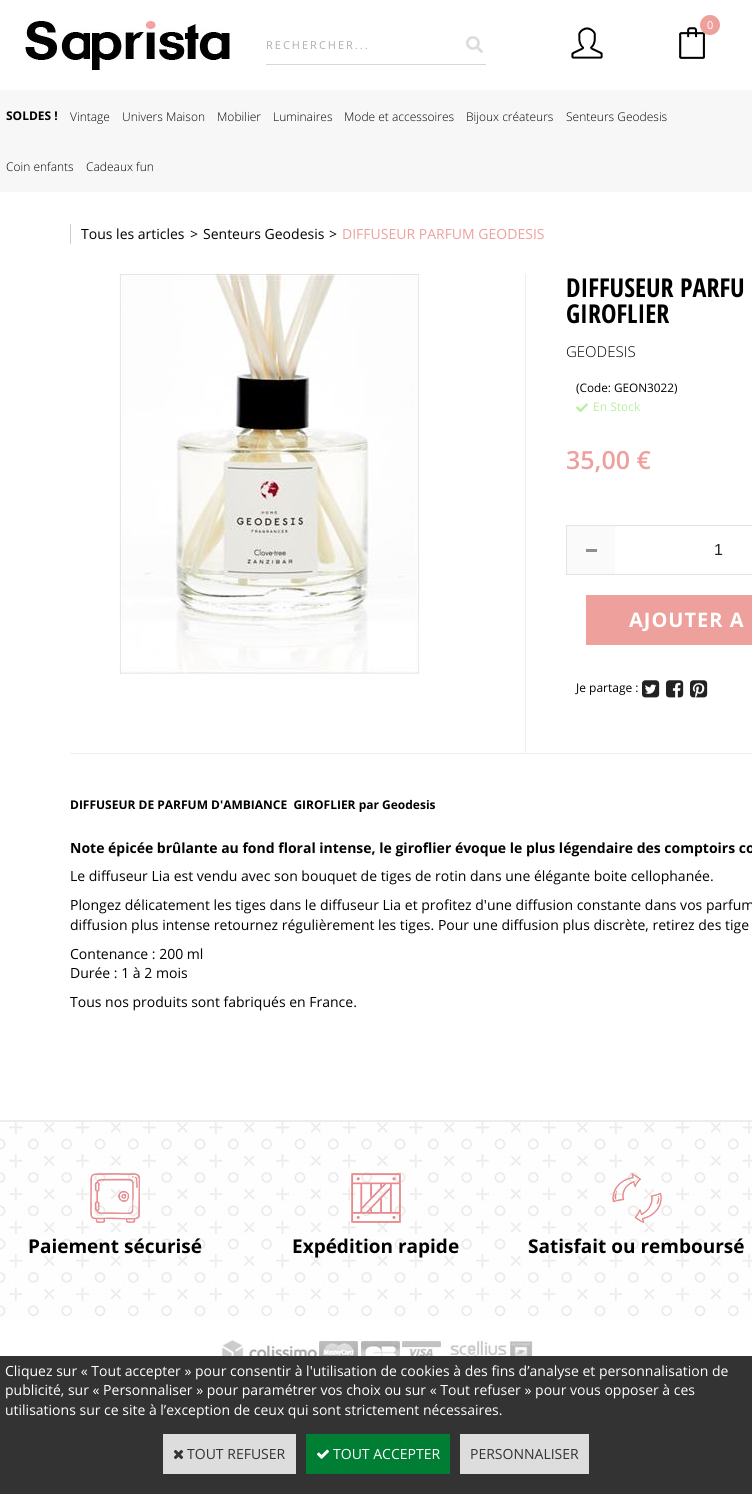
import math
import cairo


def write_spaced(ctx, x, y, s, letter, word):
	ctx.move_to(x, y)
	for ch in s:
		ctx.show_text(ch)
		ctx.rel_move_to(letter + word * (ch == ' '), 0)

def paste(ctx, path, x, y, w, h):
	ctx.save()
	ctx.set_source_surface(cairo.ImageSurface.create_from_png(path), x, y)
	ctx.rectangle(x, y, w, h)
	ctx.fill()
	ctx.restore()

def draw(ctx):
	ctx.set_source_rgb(1, 1, 1)
	ctx.paint()
	paste(ctx, 'media/1.png', 25, 21, 205, 49)
	paste(ctx, 'media/2.png', 679, 27, 26, 32)
	ctx.set_source_rgb(0.933, 0.627, 0.612)
	ctx.arc(710, 25, 10, 0, 2 * math.pi)
	ctx.fill()
	ctx.select_font_face('Open Sans')
	ctx.set_font_size(11)
	ctx.set_source_rgb(1, 1, 1)
	ctx.move_to(707, 29)
	ctx.show_text('0')
	paste(ctx, 'media/3.png', 571, 27, 32, 32)
	ctx.set_source_rgb(0.843, 0.843, 0.843)
	ctx.rectangle(266, 64, 220, 1)
	ctx.fill()
	ctx.set_source_rgb(0.686, 0.686, 0.686)
	write_spaced(ctx, 266, 49, 'RECHERCHER...', 2, 0)
	paste(ctx, 'media/4.png', 466, 36, 17, 17)
	ctx.set_source_rgb(0.965, 0.965, 0.965)
	ctx.rectangle(0, 91, 752, 100)
	ctx.fill()
	ctx.set_source_rgb(0.973, 0.973, 0.973)
	ctx.rectangle(0, 90, 752, 1)
	ctx.rectangle(0, 191, 752, 1)
	ctx.fill()
	ctx.select_font_face('Open Sans', cairo.FONT_SLANT_NORMAL, cairo.FONT_WEIGHT_BOLD)
	ctx.set_font_size(12)
	ctx.set_source_rgb(0, 0, 0)
	ctx.move_to(6, 120)
	ctx.show_text('SOLDES !')
	ctx.select_font_face('Open Sans Light')
	for x, y, s in [
		(70, 121, 'Vintage'),
		(122, 121, 'Univers Maison'),
		(217, 121, 'Mobilier'),
		(273, 121, 'Luminaires'),
		(344, 121, 'Mode et accessoires'),
		(466, 121, 'Bijoux créateurs'),
		(566, 121, 'Senteurs Geodesis'),
		(6, 171, 'Coin enfants'),
		(86, 171, 'Cadeaux fun'),
	]:
		ctx.move_to(x, y)
		ctx.show_text(s)
	ctx.set_source_rgb(0.8, 0.8, 0.8)
	ctx.rectangle(70, 224, 1, 20)
	ctx.fill()
	ctx.select_font_face('Open Sans')
	ctx.set_font_size(14)
	ctx.set_source_rgb(0, 0, 0)
	for x, y, s in [
		(81, 239, 'Tous les articles'),
		(190, 239, '>'),
		(203, 239, 'Senteurs Geodesis'),
		(329, 239, '>'),
	]:
		ctx.move_to(x, y)
		ctx.show_text(s)
	ctx.set_source_rgb(0.933, 0.627, 0.612)
	ctx.move_to(342, 239)
	ctx.show_text('DIFFUSEUR PARFUM GEODESIS')
	ctx.set_source_rgb(0.933, 0.933, 0.933)
	ctx.rectangle(525, 274, 1, 480)
	ctx.fill()
	ctx.rectangle(70, 753, 682, 1)
	ctx.fill()
	paste(ctx, 'media/5.png', 119, 274, 301, 400)
	ctx.select_font_face('Open Sans Condensed', cairo.FONT_SLANT_NORMAL, cairo.FONT_WEIGHT_BOLD)
	ctx.set_font_size(26)
	ctx.set_source_rgb(0, 0, 0)
	ctx.move_to(566, 297)
	ctx.show_text('DIFFUSEUR PARFU')
	ctx.move_to(566, 323)
	ctx.show_text('GIROFLIER')
	ctx.select_font_face('Open Sans Light')
	ctx.set_font_size(15)
	ctx.move_to(566, 357)
	ctx.show_text('GEODESIS')
	ctx.select_font_face('Open Sans')
	ctx.set_font_size(11.75)
	ctx.move_to(576, 392)
	ctx.show_text('(Code: GEON3022)')
	paste(ctx, 'media/6.png', 576, 403, 12, 10)
	ctx.set_font_size(12)
	ctx.set_source_rgb(0.733, 0.929, 0.631)
	ctx.move_to(593, 411)
	ctx.show_text('En Stock')
	ctx.select_font_face('Open Sans SemiBold')
	ctx.set_font_size(25)
	ctx.set_source_rgb(0.933, 0.627, 0.612)
	ctx.move_to(566, 469)
	ctx.show_text('35,00 €')
	ctx.rectangle(566.5, 525.5, 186, 49)
	ctx.set_source_rgb(0.89, 0.89, 0.89)
	ctx.set_line_width(1)
	ctx.stroke()
	ctx.set_source_rgb(0.98, 0.98, 0.98)
	ctx.rectangle(567, 526, 48, 48)
	ctx.fill()
	ctx.set_source_rgb(0.557, 0.557, 0.557)
	ctx.rectangle(586, 549, 11, 3)
	ctx.fill()
	ctx.select_font_face('Liberation Sans')
	ctx.set_font_size(16)
	ctx.set_source_rgb(0.129, 0.129, 0.129)
	ctx.move_to(714, 555)
	ctx.show_text('1')
	ctx.set_source_rgb(0.933, 0.627, 0.612)
	ctx.rectangle(586, 595, 166, 50)
	ctx.fill()
	ctx.select_font_face('Open Sans', cairo.FONT_SLANT_NORMAL, cairo.FONT_WEIGHT_BOLD)
	ctx.set_font_size(20)
	ctx.set_source_rgb(1, 1, 1)
	write_spaced(ctx, 629, 627, 'AJOUTER A', 1, 0)
	ctx.select_font_face('Open Sans')
	ctx.set_font_size(12)
	ctx.set_source_rgb(0, 0, 0)
	ctx.move_to(576, 692)
	ctx.show_text('Je partage :')
	paste(ctx, 'media/7.png', 642, 680, 18, 18)
	paste(ctx, 'media/8.png', 666, 680, 18, 18)
	paste(ctx, 'media/9.png', 690, 680, 18, 18)
	ctx.select_font_face('Open Sans', cairo.FONT_SLANT_NORMAL, cairo.FONT_WEIGHT_BOLD)
	ctx.move_to(70, 809)
	ctx.show_text('DIFFUSEUR DE PARFUM D\'AMBIANCE  GIROFLIER par Geodesis')
	ctx.set_font_size(14)
	ctx.move_to(70, 853)
	ctx.show_text('Note épicée brûlante au fond floral intense, le giroflier évoque le plus légendaire des comptoirs co')
	ctx.select_font_face('Open Sans')
	for x, y, s in [
		(70, 881, 'Le diffuseur Lia est vendu avec son bouquet de tiges de rotin dans une élégante boite cellophanée.'),
		(70, 910, 'Plongez délicatement les tiges dans le diffuseur Lia et profitez d\'une diffusion constante dans vos parfum'),
		(70, 930, 'diffusion plus intense retournez régulièrement les tiges. Pour une diffusion plus discrète, retirez des tige'),
		(70, 959, 'Contenance : 200 ml'),
		(70, 978, 'Durée : 1 à 2 mois'),
		(70, 1007, 'Tous nos produits sont fabriqués en France.'),
	]:
		ctx.move_to(x, y)
		ctx.show_text(s)
	paste(ctx, 'media/10.png', 0, 1122, 752, 197)
	ctx.set_source_rgb(0.929, 0.929, 0.929)
	ctx.rectangle(0, 1120, 752, 2)
	ctx.fill()
	paste(ctx, 'media/11.png', 90, 1173, 50, 50)
	ctx.select_font_face('Open Sans', cairo.FONT_SLANT_NORMAL, cairo.FONT_WEIGHT_BOLD)
	ctx.set_font_size(19)
	ctx.set_source_rgb(0, 0, 0)
	ctx.move_to(28, 1253)
	ctx.show_text('Paiement sécurisé')
	paste(ctx, 'media/12.png', 351, 1173, 50, 50)
	ctx.move_to(292, 1253)
	ctx.show_text('Expédition rapide')
	paste(ctx, 'media/13.png', 612, 1173, 50, 50)
	ctx.move_to(528, 1253)
	ctx.show_text('Satisfait ou remboursé')
	paste(ctx, 'media/14.png', 221, 1340, 97, 16)
	paste(ctx, 'media/15.png', 319, 1339, 214, 17)
	ctx.set_source_rgb(0.2, 0.2, 0.2)
	ctx.rectangle(0, 1356, 752, 138)
	ctx.fill()
	ctx.select_font_face('Open Sans')
	ctx.set_font_size(14)
	ctx.set_source_rgb(1, 1, 1)
	for x, y, s in [
		(5, 1376, 'Cliquez sur « Tout accepter » pour consentir à l\'utilisation de cookies à des fins d’analyse et personnalisation de'),
		(5, 1395, 'publicité, sur « Personnaliser » pour paramétrer vos choix ou sur « Tout refuser » pour vous opposer à ces'),
		(5, 1415, 'utilisations sur ce site à l’exception de ceux qui sont strictement nécessaires.'),
	]:
		ctx.move_to(x, y)
		ctx.show_text(s)
	ctx.set_source_rgb(0.867, 0.867, 0.867)
	ctx.rectangle(163, 1434, 133, 40)
	ctx.fill()
	paste(ctx, 'media/16.png', 173, 1449, 11, 11)
	ctx.set_source_rgb(0.2, 0.2, 0.2)
	ctx.move_to(187, 1459)
	ctx.show_text('TOUT REFUSER')
	ctx.set_source_rgb(0, 0.494, 0.2)
	ctx.rectangle(306, 1434, 144, 40)
	ctx.fill()
	paste(ctx, 'media/17.png', 317, 1449, 12, 10)
	ctx.set_source_rgb(1, 1, 1)
	ctx.move_to(333, 1459)
	ctx.show_text('TOUT ACCEPTER')
	ctx.set_source_rgb(0.867, 0.867, 0.867)
	ctx.rectangle(460, 1434, 129, 40)
	ctx.fill()
	ctx.set_source_rgb(0.2, 0.2, 0.2)
	ctx.move_to(470, 1459)
	ctx.show_text('PERSONNALISER')


surface = cairo.ImageSurface(cairo.FORMAT_RGB24, 752, 1494)
ctx = cairo.Context(surface)
options = cairo.FontOptions()
options.set_hint_metrics(cairo.HINT_METRICS_OFF)
options.set_hint_style(cairo.HINT_STYLE_NONE)
ctx.set_font_options(options)
ctx.set_miter_limit(4)
draw(ctx)
surface.write_to_png('image.png')
